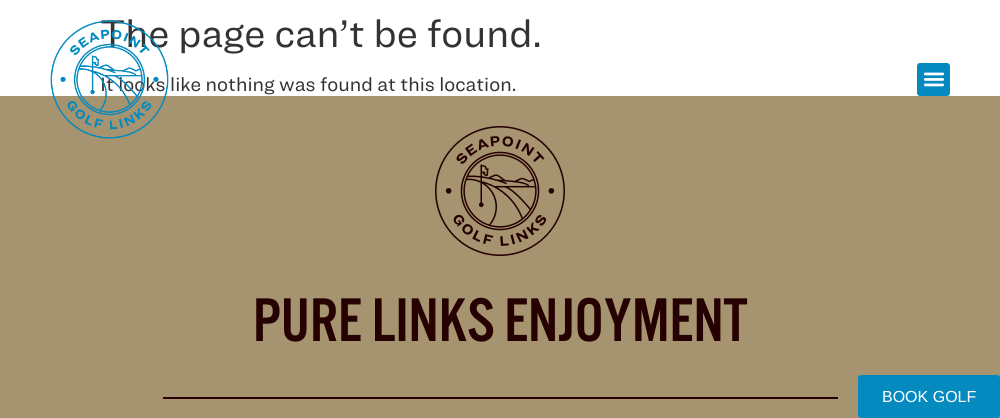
import math
import cairo


def round_path(ctx, x, y, w, h, r):
	ctx.new_sub_path()
	for i, (u, v) in enumerate([(x + w - r, y + h - r), (x + r, y + h - r), (x + r, y + r), (x + w - r, y + r)]):
		ctx.arc(u, v, r, i * math.pi / 2, (i + 1) * math.pi / 2)
	ctx.close_path()

def paste(ctx, path, x, y, w, h):
	ctx.save()
	ctx.set_source_surface(cairo.ImageSurface.create_from_png(path), x, y)
	ctx.rectangle(x, y, w, h)
	ctx.fill()
	ctx.restore()

def draw(ctx):
	ctx.set_source_rgb(1, 1, 1)
	ctx.paint()
	ctx.select_font_face('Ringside')
	ctx.set_font_size(40)
	ctx.set_source_rgb(0.2, 0.2, 0.2)
	ctx.move_to(100, 47)
	ctx.show_text('The page can’t be found.')
	ctx.set_font_size(20)
	ctx.move_to(100, 91)
	ctx.show_text('It looks like nothing was found at this location.')
	ctx.set_source_rgb(0.651, 0.576, 0.435)
	ctx.rectangle(0, 96, 1000, 322)
	ctx.fill()
	paste(ctx, 'media/1.png', 50, 20, 119, 119)
	ctx.set_source_rgb(0.016, 0.541, 0.749)
	round_path(ctx, 917, 63, 33, 33, 3)
	ctx.fill()
	paste(ctx, 'media/2.png', 923, 72, 22, 15)
	paste(ctx, 'media/3.png', 435, 126, 130, 130)
	ctx.select_font_face('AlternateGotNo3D')
	ctx.set_font_size(64)
	ctx.set_source_rgb(0.149, 0.004, 0.004)
	ctx.move_to(253, 341)
	ctx.show_text('PURE LINKS ENJOYMENT')
	ctx.rectangle(163, 397, 675, 2)
	ctx.fill()
	ctx.set_source_rgb(0.016, 0.541, 0.749)
	round_path(ctx, 858, 375, 142, 43, 3)
	ctx.fill()
	ctx.select_font_face('Liberation Sans')
	ctx.set_font_size(16)
	ctx.set_source_rgb(1, 1, 1)
	ctx.move_to(882, 402)
	ctx.show_text('BOOK GOLF')


surface = cairo.ImageSurface(cairo.FORMAT_RGB24, 1000, 418)
ctx = cairo.Context(surface)
options = cairo.FontOptions()
options.set_hint_metrics(cairo.HINT_METRICS_OFF)
options.set_hint_style(cairo.HINT_STYLE_NONE)
ctx.set_font_options(options)
ctx.set_miter_limit(4)
draw(ctx)
surface.write_to_png('image.png')
